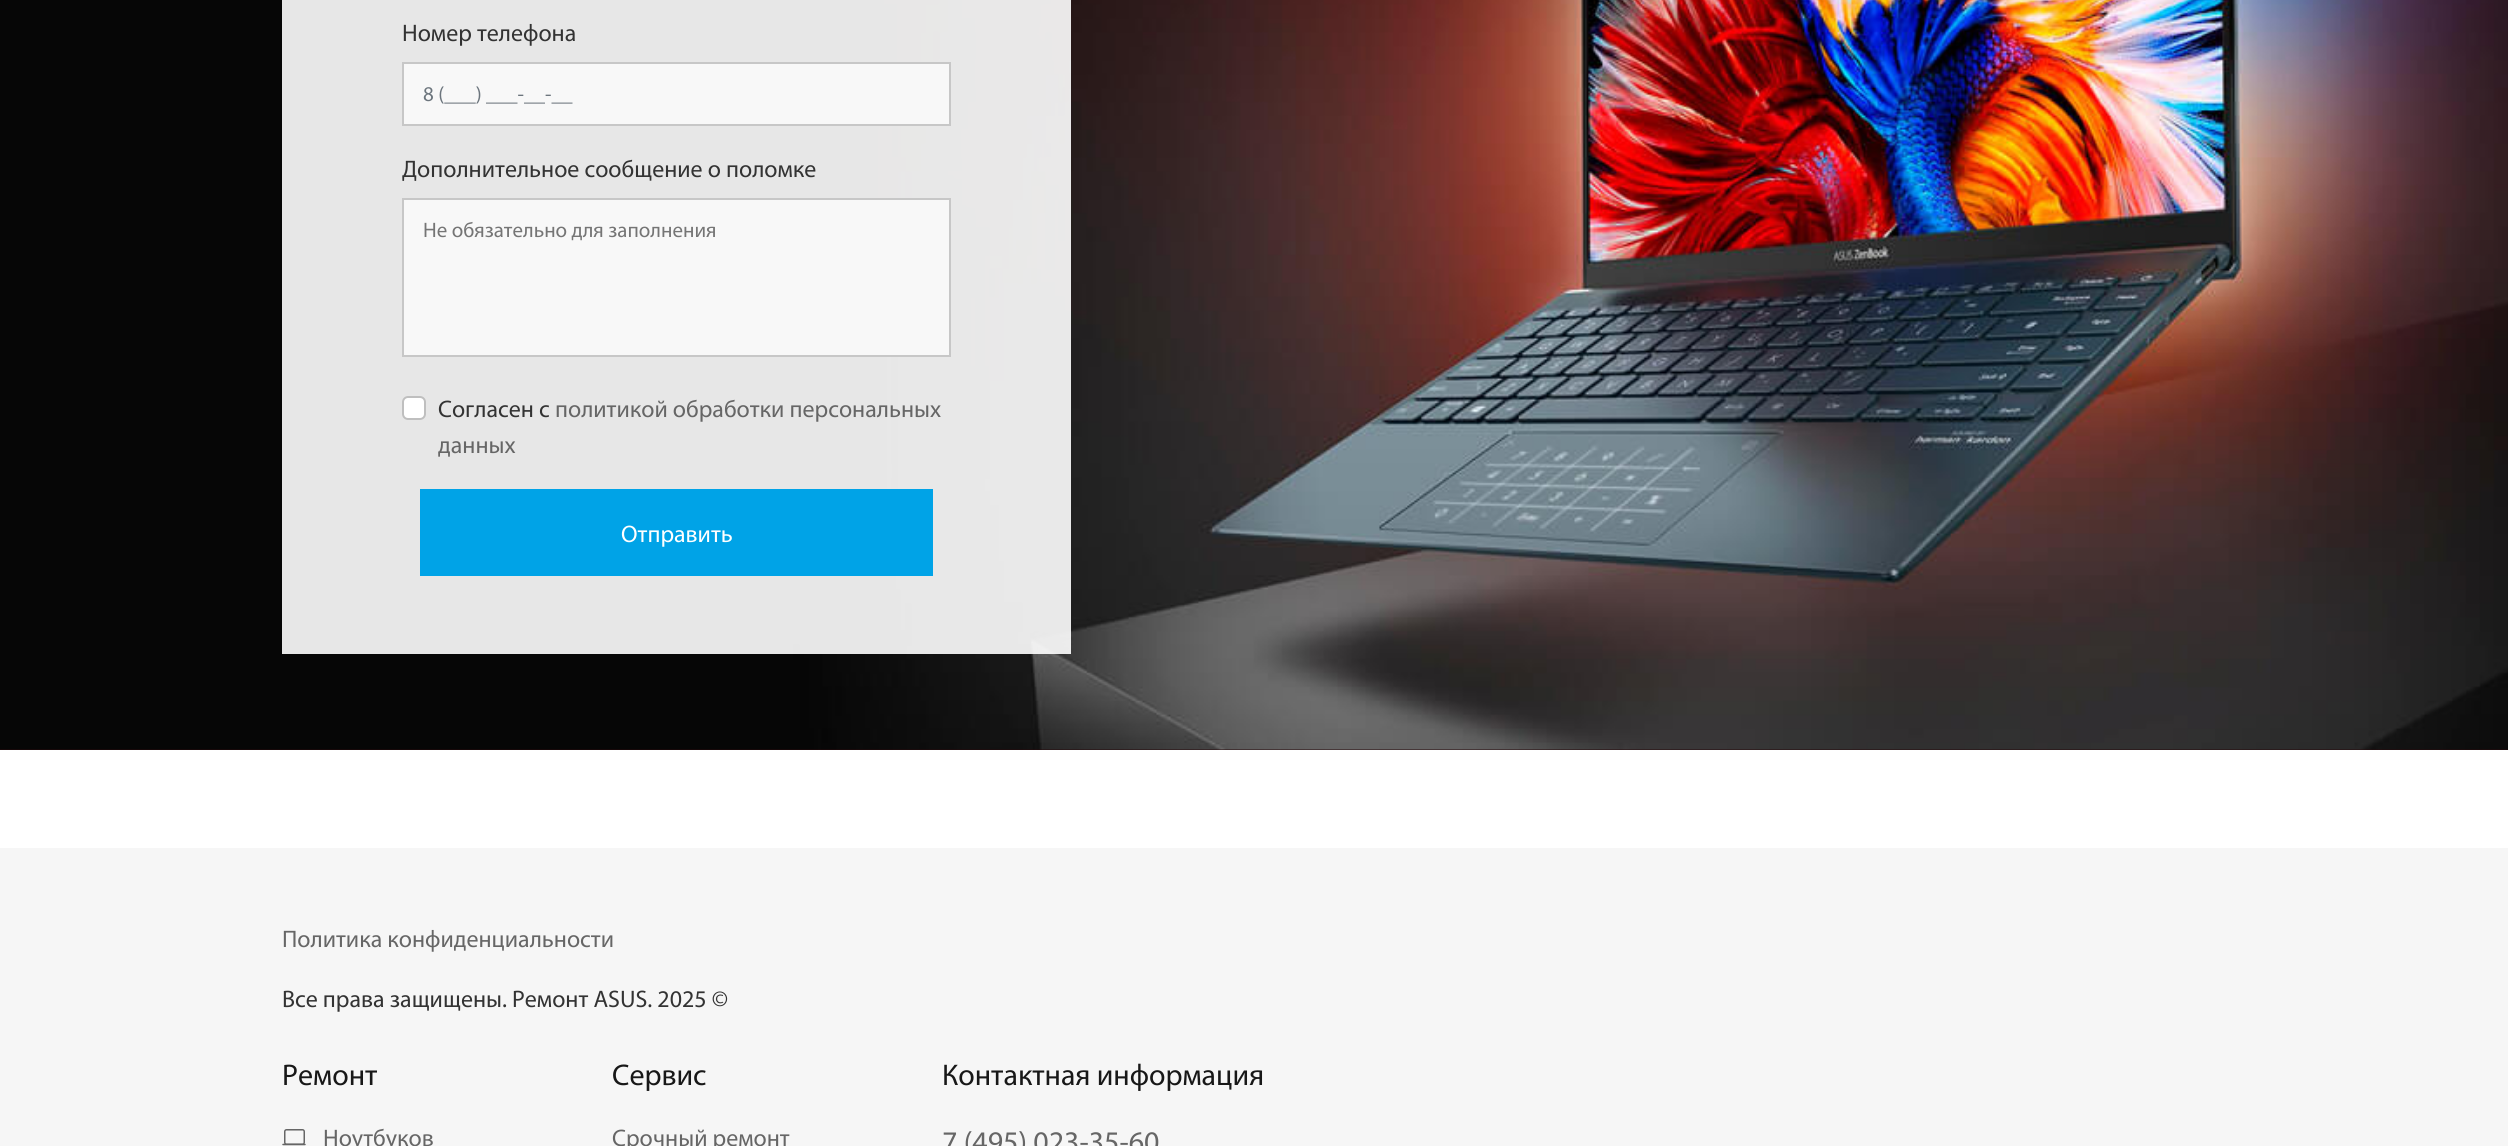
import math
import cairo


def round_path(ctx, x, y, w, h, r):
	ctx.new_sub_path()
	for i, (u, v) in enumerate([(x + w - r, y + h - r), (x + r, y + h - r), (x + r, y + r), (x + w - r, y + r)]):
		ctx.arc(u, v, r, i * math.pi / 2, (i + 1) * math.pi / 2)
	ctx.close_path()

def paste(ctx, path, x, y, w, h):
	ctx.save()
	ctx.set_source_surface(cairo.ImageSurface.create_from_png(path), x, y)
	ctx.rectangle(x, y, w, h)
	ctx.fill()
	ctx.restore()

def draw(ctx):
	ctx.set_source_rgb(1, 1, 1)
	ctx.paint()
	ctx.set_source_rgb(0.161, 0.043, 0.051)
	ctx.rectangle(0, 749, 2508, 1)
	ctx.fill()
	paste(ctx, 'media/1.png', 0, 0, 2508, 750)
	ctx.set_source_rgba(1, 1, 1, 0.9)
	ctx.rectangle(282, 0, 789, 654)
	ctx.fill()
	ctx.select_font_face('Myriad')
	ctx.set_font_size(24)
	ctx.set_source_rgb(0.2, 0.2, 0.2)
	ctx.move_to(402, 41)
	ctx.show_text('Номер телефона')
	ctx.set_source_rgb(0.969, 0.969, 0.969)
	ctx.rectangle(403, 63, 547, 62)
	ctx.fill_preserve()
	ctx.set_source_rgb(0.78, 0.78, 0.78)
	ctx.stroke()
	ctx.set_font_size(21)
	ctx.set_source_rgb(0.424, 0.459, 0.49)
	ctx.move_to(423, 101)
	ctx.show_text('8 (___) ___-__-__')
	ctx.set_font_size(24)
	ctx.set_source_rgb(0.2, 0.2, 0.2)
	ctx.move_to(402, 177)
	ctx.show_text('Дополнительное сообщение о поломке')
	ctx.set_source_rgb(0.969, 0.969, 0.969)
	ctx.rectangle(403, 199, 547, 157)
	ctx.fill_preserve()
	ctx.set_source_rgb(0.78, 0.78, 0.78)
	ctx.stroke()
	ctx.set_font_size(21)
	ctx.set_source_rgb(0.459, 0.459, 0.459)
	ctx.move_to(423, 237)
	ctx.show_text('Не обязательно для заполнения')
	ctx.set_source_rgb(1, 1, 1)
	round_path(ctx, 402, 396, 24, 24, 6)
	ctx.fill()
	round_path(ctx, 403, 397, 22, 22, 5)
	ctx.set_source_rgba(0, 0, 0, 0.25)
	ctx.stroke()
	ctx.set_font_size(24)
	ctx.set_source_rgb(0.2, 0.2, 0.2)
	ctx.move_to(438, 417)
	ctx.show_text('Согласен с')
	ctx.set_source_rgb(0.4, 0.4, 0.4)
	ctx.move_to(555, 417)
	ctx.show_text('политикой обработки персональных')
	ctx.move_to(438, 453)
	ctx.show_text('данных')
	ctx.set_source_rgb(0, 0.639, 0.906)
	ctx.rectangle(420, 489, 513, 87)
	ctx.fill()
	ctx.set_source_rgb(1, 1, 1)
	ctx.move_to(621, 542)
	ctx.show_text('Отправить')
	ctx.set_source_rgb(0.961, 0.961, 0.961)
	ctx.rectangle(0, 848, 2508, 298)
	ctx.fill()
	ctx.set_source_rgb(0.4, 0.4, 0.4)
	ctx.move_to(282, 947)
	ctx.show_text('Политика конфиденциальности')
	ctx.set_source_rgb(0.2, 0.2, 0.2)
	ctx.move_to(282, 1007)
	ctx.show_text('Все права защищены. Ремонт ASUS. 2025 ©')
	ctx.set_font_size(30)
	ctx.set_source_rgb(0.094, 0.094, 0.094)
	ctx.move_to(282, 1085)
	ctx.show_text('Ремонт')
	round_path(ctx, 284.75, 1129.75, 19.5, 14.5, 1.75)
	ctx.set_source_rgb(0.4, 0.4, 0.4)
	ctx.set_line_width(1.5)
	ctx.stroke()
	ctx.new_path()
	ctx.move_to(283, 1144.5)
	ctx.line_to(305, 1144.5)
	ctx.set_line_cap(cairo.LINE_CAP_ROUND)
	ctx.stroke()
	ctx.set_font_size(24)
	ctx.move_to(323, 1146)
	ctx.show_text('Ноутбуков')
	ctx.set_font_size(30)
	ctx.set_source_rgb(0.094, 0.094, 0.094)
	ctx.move_to(612, 1085)
	ctx.show_text('Сервис')
	ctx.set_font_size(24)
	ctx.set_source_rgb(0.4, 0.4, 0.4)
	ctx.move_to(612, 1146)
	ctx.show_text('Срочный ремонт')
	ctx.set_font_size(30)
	ctx.set_source_rgb(0.094, 0.094, 0.094)
	ctx.move_to(942, 1085)
	ctx.show_text('Контактная информация')
	ctx.set_source_rgb(0.4, 0.4, 0.4)
	ctx.move_to(942, 1152)
	ctx.show_text('7 (495) 023-35-60')


surface = cairo.ImageSurface(cairo.FORMAT_RGB24, 2508, 1146)
ctx = cairo.Context(surface)
options = cairo.FontOptions()
options.set_hint_metrics(cairo.HINT_METRICS_OFF)
options.set_hint_style(cairo.HINT_STYLE_NONE)
ctx.set_font_options(options)
ctx.set_miter_limit(4)
draw(ctx)
surface.write_to_png('image.png')
